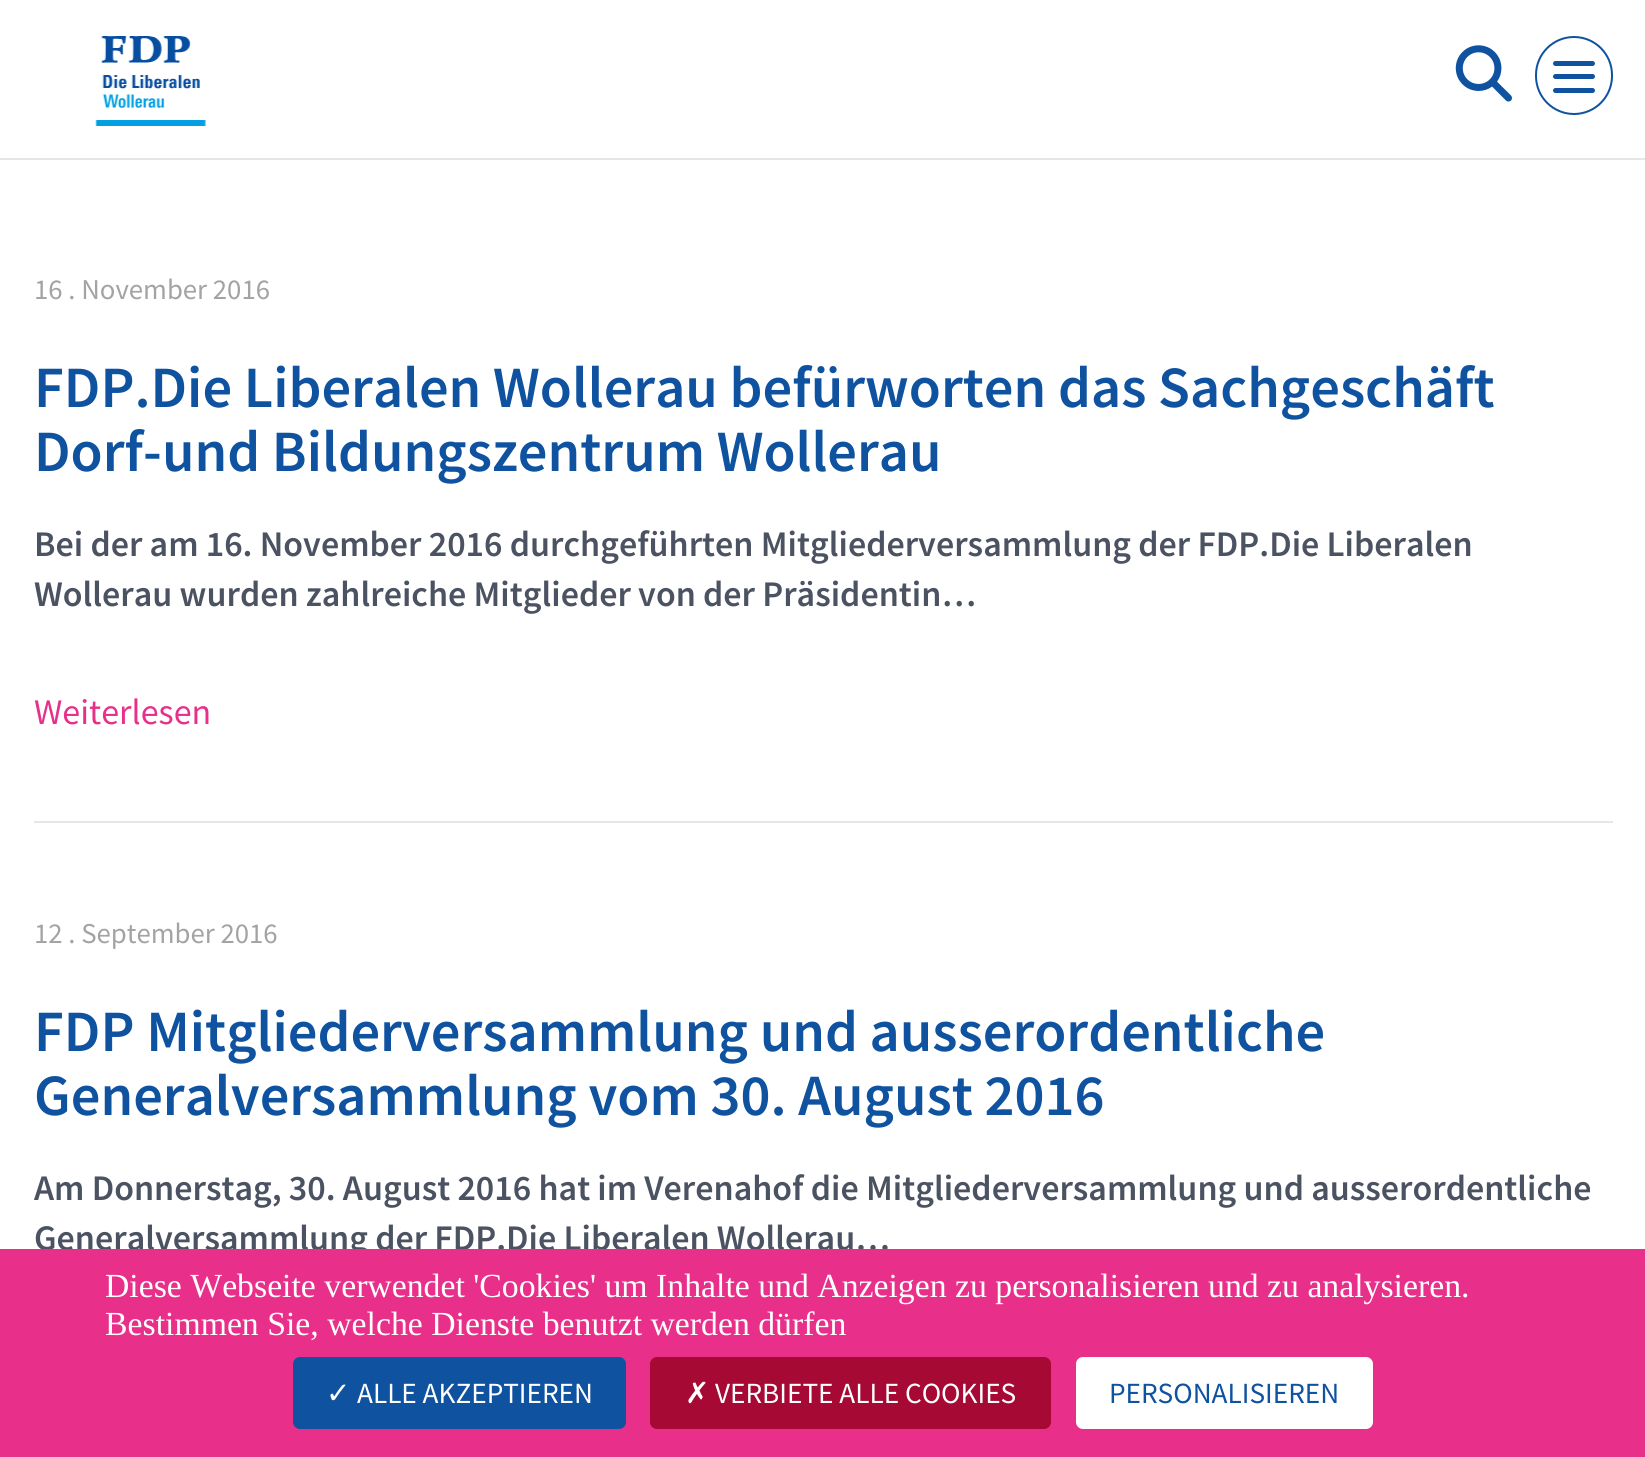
import math
import cairo


def round_path(ctx, x, y, w, h, r):
	ctx.new_sub_path()
	for i, (u, v) in enumerate([(x + w - r, y + h - r), (x + r, y + h - r), (x + r, y + r), (x + w - r, y + r)]):
		ctx.arc(u, v, r, i * math.pi / 2, (i + 1) * math.pi / 2)
	ctx.close_path()

def paste(ctx, path, x, y, w, h):
	ctx.save()
	ctx.set_source_surface(cairo.ImageSurface.create_from_png(path), x, y)
	ctx.rectangle(x, y, w, h)
	ctx.fill()
	ctx.restore()

def draw(ctx):
	ctx.set_source_rgb(1, 1, 1)
	ctx.paint()
	ctx.set_source_rgb(0.902, 0.902, 0.902)
	ctx.rectangle(0, 158, 1645, 2)
	ctx.fill()
	paste(ctx, 'media/1.png', 95, 36, 111, 90)
	paste(ctx, 'media/2.png', 1455, 45, 57, 57)
	round_path(ctx, 1536, 37, 76, 77, 38)
	ctx.set_source_rgb(0.055, 0.322, 0.627)
	ctx.stroke()
	round_path(ctx, 1553, 61, 42, 5, 2.5)
	ctx.fill()
	round_path(ctx, 1553, 74, 42, 5, 2.5)
	ctx.fill()
	round_path(ctx, 1553, 88, 42, 5, 2.5)
	ctx.fill()
	ctx.set_source_rgb(0.902, 0.902, 0.902)
	ctx.rectangle(34, 821, 1579, 2)
	ctx.fill()
	ctx.select_font_face('Source Sans Pro')
	ctx.set_font_size(28.75)
	ctx.set_source_rgb(0.639, 0.639, 0.639)
	ctx.move_to(34, 299)
	ctx.show_text('16 . November 2016')
	ctx.select_font_face('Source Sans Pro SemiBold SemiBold')
	ctx.set_font_size(58.5)
	ctx.set_source_rgb(0.055, 0.322, 0.627)
	ctx.move_to(34, 407)
	ctx.show_text('FDP.Die Liberalen Wollerau befürworten das Sachgeschäft')
	ctx.move_to(34, 471)
	ctx.show_text('Dorf-und Bildungszentrum Wollerau')
	ctx.set_font_size(36)
	ctx.set_source_rgb(0.294, 0.322, 0.38)
	ctx.move_to(34, 556)
	ctx.show_text('Bei der am 16. November 2016 durchgeführten Mitgliederversammlung der FDP.Die Liberalen')
	ctx.move_to(34, 606)
	ctx.show_text('Wollerau wurden zahlreiche Mitglieder von der Präsidentin…')
	ctx.select_font_face('Source Sans Pro')
	ctx.set_source_rgb(0.91, 0.188, 0.541)
	ctx.move_to(34, 724)
	ctx.show_text('Weiterlesen')
	ctx.set_font_size(28.75)
	ctx.set_source_rgb(0.639, 0.639, 0.639)
	ctx.move_to(34, 943)
	ctx.show_text('12 . September 2016')
	ctx.select_font_face('Source Sans Pro SemiBold SemiBold')
	ctx.set_font_size(58.5)
	ctx.set_source_rgb(0.055, 0.322, 0.627)
	ctx.move_to(34, 1051)
	ctx.show_text('FDP Mitgliederversammlung und ausserordentliche')
	ctx.move_to(34, 1115)
	ctx.show_text('Generalversammlung vom 30. August 2016')
	ctx.set_font_size(36)
	ctx.set_source_rgb(0.294, 0.322, 0.38)
	ctx.move_to(34, 1200)
	ctx.show_text('Am Donnerstag, 30. August 2016 hat im Verenahof die Mitgliederversammlung und ausserordentliche')
	ctx.move_to(34, 1250)
	ctx.show_text('Generalversammlung der FDP.Die Liberalen Wollerau…')
	ctx.set_source_rgb(0.91, 0.188, 0.541)
	ctx.rectangle(0, 1249, 1645, 208)
	ctx.fill()
	ctx.select_font_face('Liberation Serif')
	ctx.set_font_size(33.75)
	ctx.set_source_rgb(1, 1, 1)
	ctx.move_to(105, 1297)
	ctx.show_text('Diese Webseite verwendet \'Cookies\' um Inhalte und Anzeigen zu personalisieren und zu analysieren.')
	ctx.move_to(105, 1335)
	ctx.show_text('Bestimmen Sie, welche Dienste benutzt werden dürfen')
	ctx.set_source_rgb(0.055, 0.322, 0.627)
	round_path(ctx, 293, 1357, 333, 72, 7)
	ctx.fill()
	ctx.select_font_face('DejaVu Sans')
	ctx.set_font_size(29.25)
	ctx.set_source_rgb(1, 1, 1)
	ctx.move_to(326, 1403)
	ctx.show_text('✓')
	ctx.select_font_face('Source Sans Pro')
	ctx.move_to(357, 1403)
	ctx.show_text('ALLE AKZEPTIEREN')
	ctx.set_source_rgb(0.651, 0.039, 0.2)
	round_path(ctx, 650, 1357, 401, 72, 7)
	ctx.fill()
	ctx.select_font_face('DejaVu Sans')
	ctx.set_source_rgb(1, 1, 1)
	ctx.move_to(685, 1403)
	ctx.show_text('✗')
	ctx.select_font_face('Source Sans Pro')
	ctx.move_to(715, 1403)
	ctx.show_text('VERBIETE ALLE COOKIES')
	round_path(ctx, 1076, 1357, 297, 72, 7)
	ctx.fill()
	ctx.set_source_rgb(0.055, 0.322, 0.627)
	ctx.move_to(1109, 1403)
	ctx.show_text('PERSONALISIEREN')


surface = cairo.ImageSurface(cairo.FORMAT_RGB24, 1645, 1457)
ctx = cairo.Context(surface)
options = cairo.FontOptions()
options.set_hint_metrics(cairo.HINT_METRICS_OFF)
options.set_hint_style(cairo.HINT_STYLE_NONE)
ctx.set_font_options(options)
ctx.set_miter_limit(4)
draw(ctx)
surface.write_to_png('image.png')
